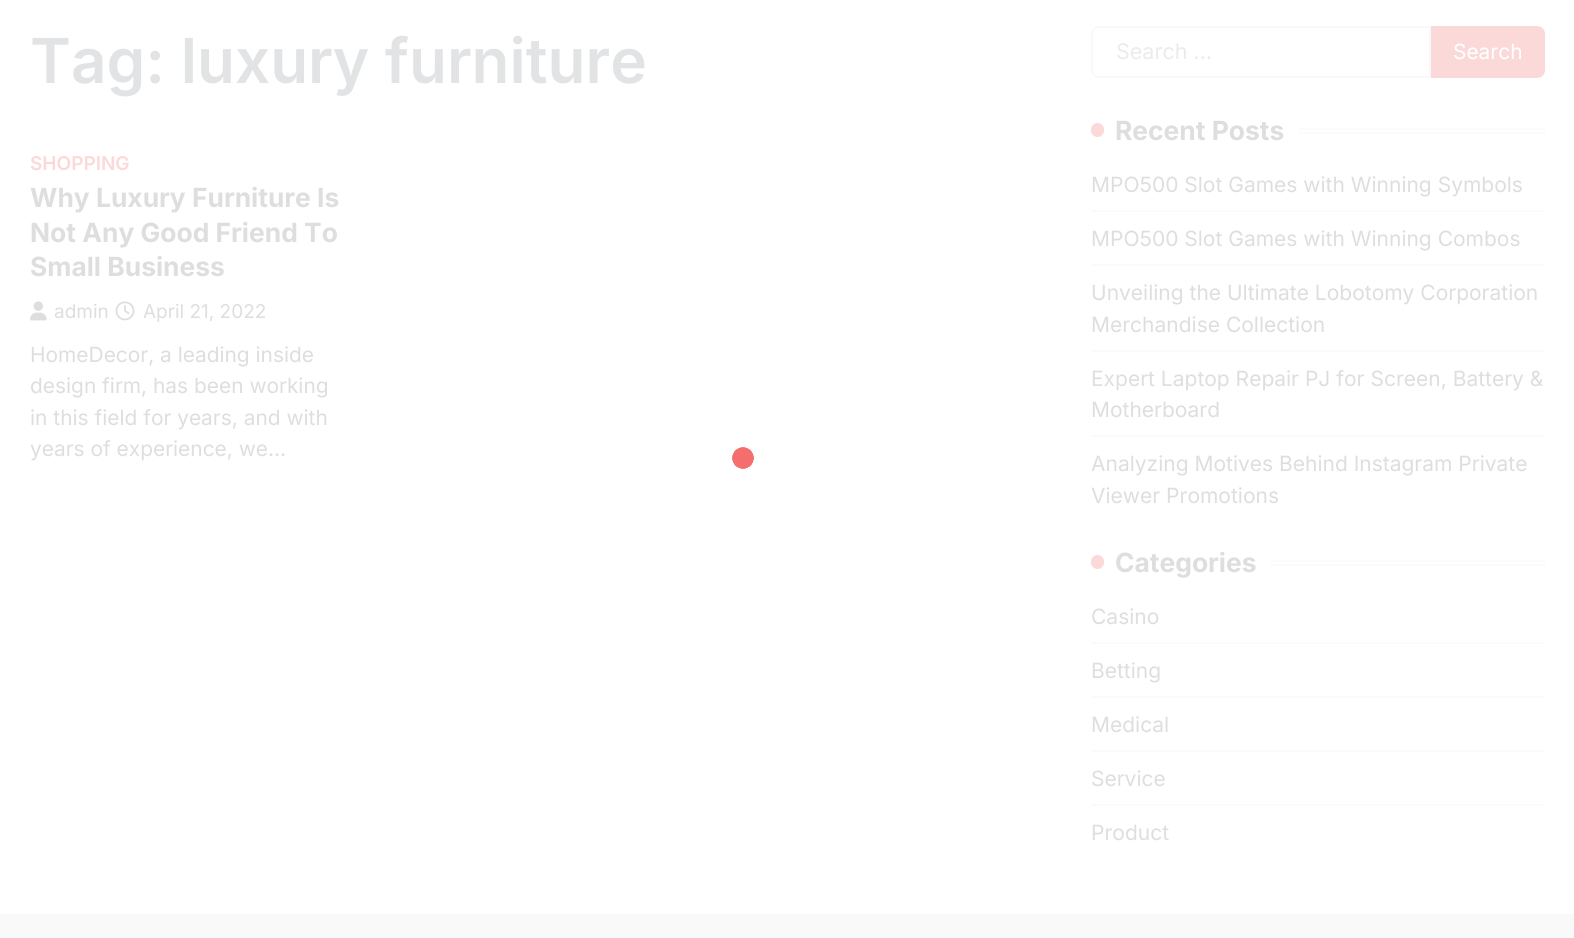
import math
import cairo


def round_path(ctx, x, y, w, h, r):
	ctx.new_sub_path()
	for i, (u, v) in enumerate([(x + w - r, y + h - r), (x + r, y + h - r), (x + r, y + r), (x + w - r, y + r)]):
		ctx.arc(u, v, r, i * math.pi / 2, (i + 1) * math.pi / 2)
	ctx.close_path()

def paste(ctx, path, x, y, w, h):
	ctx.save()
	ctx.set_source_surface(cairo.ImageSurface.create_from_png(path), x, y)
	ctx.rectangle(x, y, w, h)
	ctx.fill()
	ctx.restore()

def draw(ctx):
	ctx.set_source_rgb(1, 1, 1)
	ctx.paint()
	ctx.select_font_face('Inter SemiBold')
	ctx.set_font_size(62)
	ctx.set_source_rgb(0.886, 0.89, 0.898)
	ctx.move_to(30, 83)
	ctx.show_text('Tag: luxury furniture')
	ctx.set_font_size(19)
	ctx.set_source_rgb(0.988, 0.851, 0.851)
	ctx.move_to(30, 170)
	ctx.show_text('SHOPPING')
	ctx.select_font_face('Inter', cairo.FONT_SLANT_NORMAL, cairo.FONT_WEIGHT_BOLD)
	ctx.set_font_size(26.4)
	ctx.set_source_rgb(0.871, 0.871, 0.871)
	for x, y, s in [
		(30, 207, 'Why Luxury Furniture Is'),
		(30, 242, 'Not Any Good Friend To'),
		(30, 276, 'Small Business'),
	]:
		ctx.move_to(x, y)
		ctx.show_text(s)
	paste(ctx, 'media/1.png', 30, 301, 17, 20)
	ctx.select_font_face('Inter')
	ctx.set_font_size(19)
	ctx.move_to(54, 318)
	ctx.show_text('admin')
	paste(ctx, 'media/2.png', 115, 301, 20, 20)
	ctx.move_to(143, 318)
	ctx.show_text('April 21, 2022')
	ctx.set_font_size(20.9)
	for x, y, s in [
		(30, 362, 'HomeDecor, a leading inside'),
		(30, 393, 'design firm, has been working'),
		(30, 425, 'in this field for years, and with'),
		(30, 456, 'years of experience, we…'),
	]:
		ctx.move_to(x, y)
		ctx.show_text(s)
	ctx.new_path()
	ctx.move_to(1099, 27)
	ctx.line_to(1430, 27)
	ctx.line_to(1430, 77)
	ctx.line_to(1099, 77)
	ctx.curve_to(1095, 77, 1092, 74, 1092, 70)
	ctx.line_to(1092, 34)
	ctx.curve_to(1092, 30, 1095, 27, 1099, 27)
	ctx.close_path()
	ctx.set_source_rgb(0.973, 0.973, 0.973)
	ctx.stroke()
	ctx.set_font_size(21.5)
	ctx.set_source_rgb(0.918, 0.918, 0.918)
	ctx.move_to(1116, 59)
	ctx.show_text('Search …')
	ctx.set_source_rgb(0.988, 0.851, 0.851)
	ctx.new_path()
	ctx.move_to(1432, 27)
	ctx.line_to(1537, 27)
	ctx.curve_to(1541, 27, 1544, 30, 1544, 34)
	ctx.line_to(1544, 70)
	ctx.curve_to(1544, 74, 1541, 77, 1537, 77)
	ctx.line_to(1432, 77)
	ctx.close_path()
	ctx.fill_preserve()
	ctx.stroke()
	ctx.set_font_size(20.9)
	ctx.set_source_rgb(1, 1, 1)
	ctx.move_to(1453, 59)
	ctx.show_text('Search')
	ctx.set_source_rgb(0.988, 0.851, 0.851)
	round_path(ctx, 1091, 123, 13, 14, 6.5)
	ctx.fill()
	ctx.select_font_face('Inter', cairo.FONT_SLANT_NORMAL, cairo.FONT_WEIGHT_BOLD)
	ctx.set_font_size(26.4)
	ctx.set_source_rgb(0.871, 0.871, 0.871)
	ctx.move_to(1115, 140)
	ctx.show_text('Recent Posts')
	ctx.set_source_rgb(0.984, 0.984, 0.984)
	ctx.rectangle(1299, 128, 246, 2)
	ctx.rectangle(1299, 132, 246, 2)
	ctx.rectangle(1091, 210, 454, 2)
	ctx.fill()
	ctx.select_font_face('Inter')
	ctx.set_font_size(21)
	ctx.set_source_rgb(0.871, 0.871, 0.871)
	ctx.move_to(1091, 192)
	ctx.show_text('MPO500 Slot Games with Winning Symbols')
	ctx.set_source_rgb(0.984, 0.984, 0.984)
	ctx.rectangle(1091, 264, 454, 2)
	ctx.fill()
	ctx.set_source_rgb(0.871, 0.871, 0.871)
	ctx.move_to(1091, 246)
	ctx.show_text('MPO500 Slot Games with Winning Combos')
	ctx.set_source_rgb(0.984, 0.984, 0.984)
	ctx.rectangle(1091, 350, 454, 2)
	ctx.fill()
	ctx.set_source_rgb(0.871, 0.871, 0.871)
	ctx.move_to(1091, 300)
	ctx.show_text('Unveiling the Ultimate Lobotomy Corporation')
	ctx.move_to(1091, 332)
	ctx.show_text('Merchandise Collection')
	ctx.set_source_rgb(0.984, 0.984, 0.984)
	ctx.rectangle(1091, 435, 454, 2)
	ctx.fill()
	ctx.set_source_rgb(0.871, 0.871, 0.871)
	for x, y, s in [
		(1091, 386, 'Expert Laptop Repair PJ for Screen, Battery &'),
		(1091, 417, 'Motherboard'),
		(1091, 471, 'Analyzing Motives Behind Instagram Private'),
		(1091, 503, 'Viewer Promotions'),
	]:
		ctx.move_to(x, y)
		ctx.show_text(s)
	ctx.set_source_rgb(0.988, 0.851, 0.851)
	round_path(ctx, 1091, 555, 13, 14, 6.5)
	ctx.fill()
	ctx.select_font_face('Inter', cairo.FONT_SLANT_NORMAL, cairo.FONT_WEIGHT_BOLD)
	ctx.set_font_size(26.4)
	ctx.set_source_rgb(0.871, 0.871, 0.871)
	ctx.move_to(1115, 572)
	ctx.show_text('Categories')
	ctx.set_source_rgb(0.984, 0.984, 0.984)
	ctx.rectangle(1271, 560, 274, 2)
	ctx.rectangle(1271, 564, 274, 2)
	ctx.rectangle(1091, 642, 454, 2)
	ctx.fill()
	ctx.select_font_face('Inter')
	ctx.set_font_size(21)
	ctx.set_source_rgb(0.871, 0.871, 0.871)
	ctx.move_to(1091, 624)
	ctx.show_text('Casino')
	ctx.set_source_rgb(0.984, 0.984, 0.984)
	ctx.rectangle(1091, 696, 454, 2)
	ctx.fill()
	ctx.set_source_rgb(0.871, 0.871, 0.871)
	ctx.move_to(1091, 678)
	ctx.show_text('Betting')
	ctx.set_source_rgb(0.984, 0.984, 0.984)
	ctx.rectangle(1091, 750, 454, 2)
	ctx.fill()
	ctx.set_source_rgb(0.871, 0.871, 0.871)
	ctx.move_to(1091, 732)
	ctx.show_text('Medical')
	ctx.set_source_rgb(0.984, 0.984, 0.984)
	ctx.rectangle(1091, 804, 454, 2)
	ctx.fill()
	ctx.set_source_rgb(0.871, 0.871, 0.871)
	ctx.move_to(1091, 786)
	ctx.show_text('Service')
	ctx.move_to(1091, 840)
	ctx.show_text('Product')
	gradient = cairo.RadialGradient(743, 458, 0, 743, 458, 11)
	gradient.add_color_stop_rgba(0.9, 0.961, 0.431, 0.431, 1)
	gradient.add_color_stop_rgba(1, 1, 1, 1, 1)
	ctx.set_source(gradient)
	ctx.rectangle(732, 447, 22, 22)
	ctx.fill()
	gradient = cairo.RadialGradient(743, 458, 0, 743, 458, 11)
	gradient.add_color_stop_rgba(0.9, 0.961, 0.431, 0.431, 1)
	gradient.add_color_stop_rgba(1, 0.961, 0.431, 0.431, 0)
	ctx.set_source(gradient)
	ctx.rectangle(732, 447, 22, 22)
	ctx.fill()
	ctx.rectangle(732, 447, 22, 22)
	ctx.fill()
	ctx.rectangle(732, 447, 22, 22)
	ctx.fill()
	ctx.set_source_rgb(0.973, 0.976, 0.98)
	ctx.rectangle(0, 914, 1574, 24)
	ctx.fill()


surface = cairo.ImageSurface(cairo.FORMAT_RGB24, 1574, 938)
ctx = cairo.Context(surface)
options = cairo.FontOptions()
options.set_hint_metrics(cairo.HINT_METRICS_OFF)
options.set_hint_style(cairo.HINT_STYLE_NONE)
ctx.set_font_options(options)
ctx.set_miter_limit(4)
draw(ctx)
surface.write_to_png('image.png')
